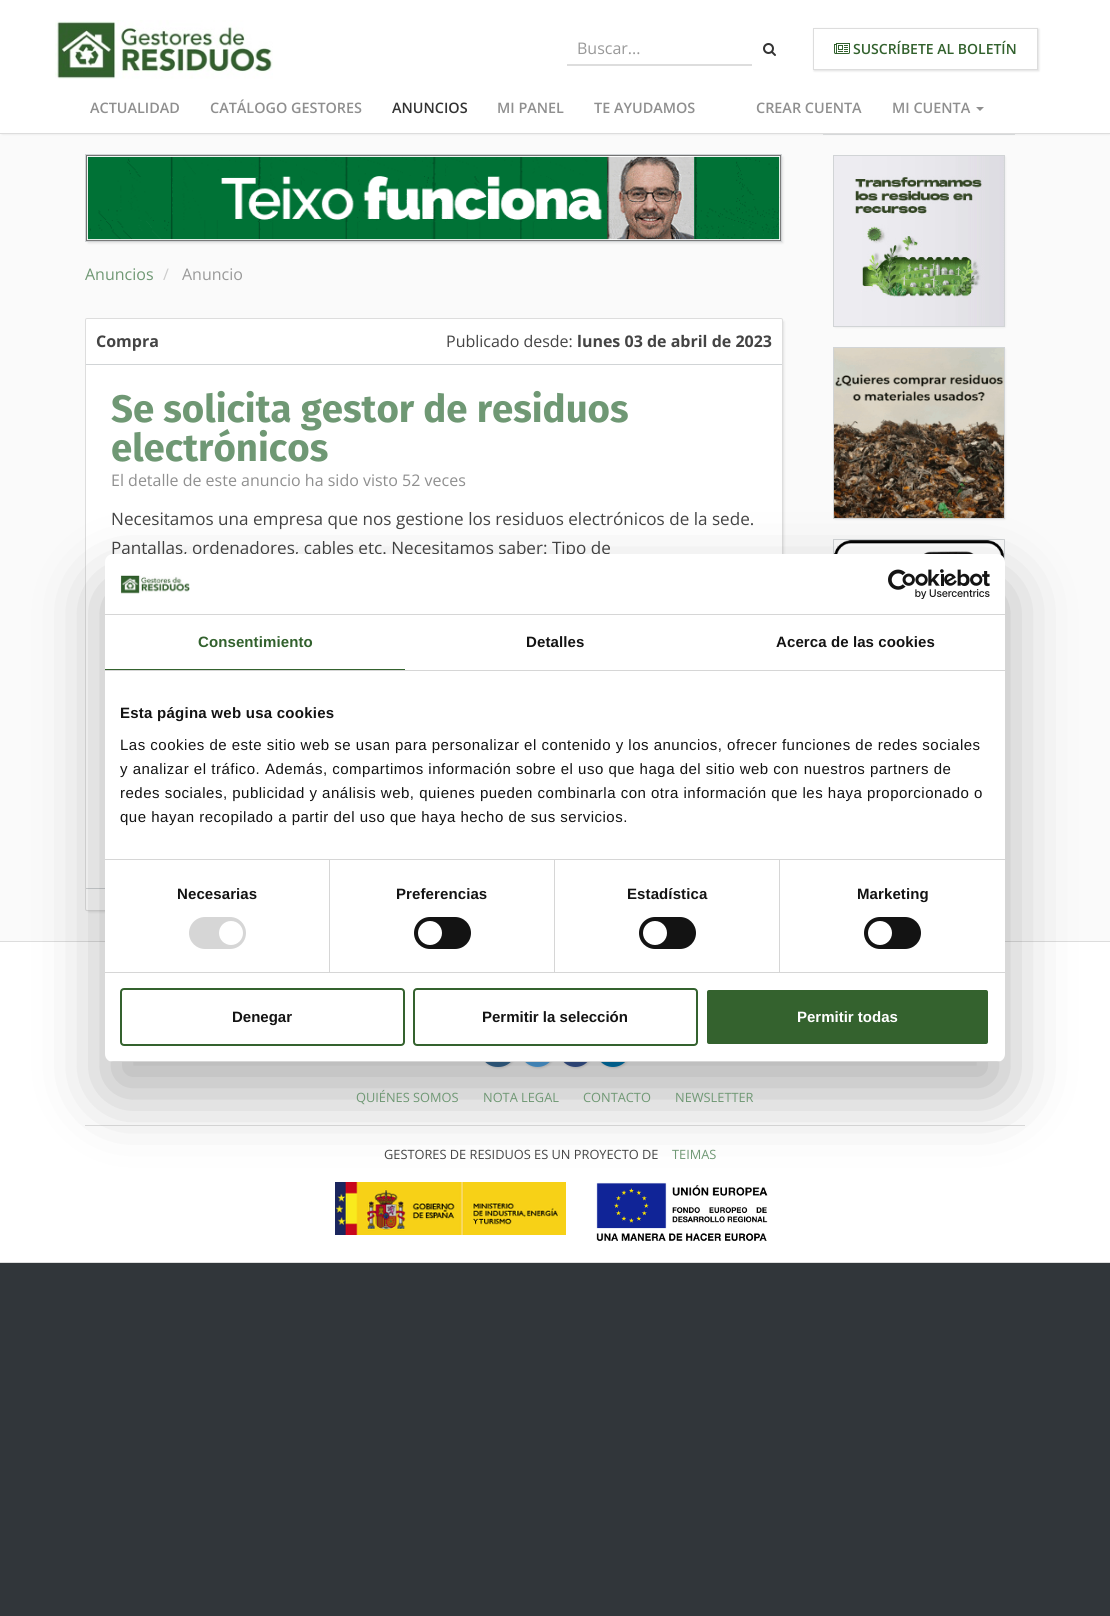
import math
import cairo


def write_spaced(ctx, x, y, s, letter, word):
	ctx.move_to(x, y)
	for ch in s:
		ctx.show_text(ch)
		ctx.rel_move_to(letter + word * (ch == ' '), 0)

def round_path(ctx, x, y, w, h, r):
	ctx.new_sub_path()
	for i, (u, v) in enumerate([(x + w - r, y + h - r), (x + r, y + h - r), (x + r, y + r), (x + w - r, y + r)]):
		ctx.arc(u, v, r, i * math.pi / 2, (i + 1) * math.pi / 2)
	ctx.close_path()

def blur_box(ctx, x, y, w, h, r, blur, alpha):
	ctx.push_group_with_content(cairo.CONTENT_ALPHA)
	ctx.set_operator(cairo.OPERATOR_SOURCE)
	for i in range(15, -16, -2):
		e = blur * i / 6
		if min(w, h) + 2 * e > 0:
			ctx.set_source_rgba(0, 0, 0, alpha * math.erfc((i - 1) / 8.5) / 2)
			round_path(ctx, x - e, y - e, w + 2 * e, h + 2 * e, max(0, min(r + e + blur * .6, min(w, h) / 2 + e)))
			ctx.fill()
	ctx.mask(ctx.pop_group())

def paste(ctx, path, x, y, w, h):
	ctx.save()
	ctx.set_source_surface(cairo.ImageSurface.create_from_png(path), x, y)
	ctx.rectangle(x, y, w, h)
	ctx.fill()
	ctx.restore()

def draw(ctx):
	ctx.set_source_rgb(0.192, 0.212, 0.227)
	ctx.paint()
	ctx.set_source_rgb(1, 1, 1)
	ctx.rectangle(0, 0, 1110, 80)
	ctx.fill()
	paste(ctx, 'media/1.png', 55, 20, 218, 59)
	ctx.set_source_rgb(0.867, 0.867, 0.867)
	ctx.rectangle(567, 64, 185, 2)
	ctx.fill()
	ctx.select_font_face('Open Sans')
	ctx.set_font_size(16)
	ctx.set_source_rgb(0.6, 0.6, 0.6)
	ctx.move_to(577, 54)
	ctx.show_text('Buscar...')
	paste(ctx, 'media/2.png', 763, 43, 13, 13)
	ctx.save()
	ctx.set_fill_rule(cairo.FILL_RULE_EVEN_ODD)
	ctx.new_path()
	ctx.move_to(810, 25)
	ctx.line_to(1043, 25)
	ctx.line_to(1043, 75)
	ctx.line_to(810, 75)
	ctx.close_path()
	ctx.move_to(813, 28)
	ctx.line_to(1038, 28)
	ctx.line_to(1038, 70)
	ctx.line_to(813, 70)
	ctx.close_path()
	ctx.clip()
	ctx.set_source_rgb(0.878, 0.878, 0.878)
	blur_box(ctx, 814, 29, 225, 42, 0, 1, 1)
	ctx.restore()
	ctx.rectangle(813.5, 28.5, 224, 41)
	ctx.set_source_rgb(0.867, 0.867, 0.867)
	ctx.set_line_width(1)
	ctx.stroke()
	paste(ctx, 'media/3.png', 834, 43, 16, 11)
	ctx.select_font_face('Open Sans SemiBold')
	ctx.set_font_size(14)
	ctx.set_source_rgb(0.196, 0.38, 0.176)
	ctx.move_to(853, 54)
	ctx.show_text('SUSCRÍBETE AL BOLETÍN')
	ctx.set_source_rgb(0.98, 0.98, 0.98)
	ctx.rectangle(0, 134, 1110, 807)
	ctx.fill()
	ctx.set_source_rgb(0.82, 0.831, 0.839)
	ctx.rectangle(823, 134, 192, 1)
	ctx.fill()
	ctx.set_source_rgb(0.878, 0.878, 0.878)
	blur_box(ctx, 2, 82, 1108, 52, 0, 1, 1)
	ctx.set_source_rgb(1, 1, 1)
	ctx.rectangle(0, 80, 1110, 53)
	ctx.fill()
	ctx.set_source_rgb(0.867, 0.867, 0.867)
	ctx.rectangle(0, 133, 1110, 1)
	ctx.fill()
	ctx.set_font_size(14.4)
	ctx.set_source_rgb(0.561, 0.561, 0.561)
	ctx.move_to(90, 113)
	ctx.show_text('ACTUALIDAD')
	ctx.move_to(210, 113)
	ctx.show_text('CATÁLOGO GESTORES')
	ctx.set_source_rgb(0.2, 0.2, 0.2)
	ctx.move_to(392, 113)
	ctx.show_text('ANUNCIOS')
	ctx.set_source_rgb(0.561, 0.561, 0.561)
	for x, y, s in [
		(497, 113, 'MI PANEL'),
		(594, 113, 'TE AYUDAMOS'),
		(756, 113, 'CREAR CUENTA'),
		(892, 113, 'MI CUENTA'),
	]:
		ctx.move_to(x, y)
		ctx.show_text(s)
	ctx.new_path()
	ctx.move_to(976, 107)
	ctx.line_to(984, 107)
	ctx.line_to(980, 111)
	ctx.close_path()
	ctx.fill()
	ctx.set_source_rgb(0.878, 0.878, 0.878)
	blur_box(ctx, 88, 157, 695, 86, 0, 1, 1)
	ctx.rectangle(85.5, 154.5, 696, 87)
	ctx.set_source_rgb(0.82, 0.831, 0.839)
	ctx.stroke()
	paste(ctx, 'media/4.png', 86, 155, 695, 86)
	ctx.select_font_face('Open Sans')
	ctx.set_font_size(16)
	ctx.set_source_rgb(0.435, 0.596, 0.455)
	ctx.move_to(85, 280)
	ctx.show_text('Anuncios')
	ctx.set_source_rgb(0.8, 0.8, 0.8)
	ctx.move_to(163, 280)
	ctx.show_text('/')
	ctx.set_source_rgb(0.6, 0.6, 0.6)
	ctx.move_to(182, 280)
	ctx.show_text('Anuncio')
	ctx.set_source_rgb(0.878, 0.878, 0.878)
	blur_box(ctx, 88, 321, 696, 591, 1, 1, 1)
	ctx.set_source_rgb(1, 1, 1)
	round_path(ctx, 85.5, 318.5, 697, 592, 1.5)
	ctx.fill_preserve()
	ctx.set_source_rgb(0.867, 0.867, 0.867)
	ctx.stroke()
	ctx.select_font_face('Open Sans', cairo.FONT_SLANT_NORMAL, cairo.FONT_WEIGHT_BOLD)
	ctx.set_source_rgb(0.267, 0.267, 0.267)
	ctx.move_to(96, 347)
	ctx.show_text('Compra')
	ctx.select_font_face('Open Sans')
	ctx.move_to(446, 347)
	ctx.show_text('Publicado desde:')
	ctx.select_font_face('Open Sans', cairo.FONT_SLANT_NORMAL, cairo.FONT_WEIGHT_BOLD)
	ctx.move_to(577, 347)
	ctx.show_text('lunes 03 de abril de 2023')
	ctx.set_source_rgb(0.82, 0.831, 0.839)
	ctx.rectangle(86, 364, 696, 1)
	ctx.fill()
	ctx.select_font_face('Fira Sans', cairo.FONT_SLANT_NORMAL, cairo.FONT_WEIGHT_BOLD)
	ctx.set_font_size(38.4)
	ctx.set_source_rgb(0.435, 0.596, 0.455)
	ctx.move_to(111, 422)
	ctx.show_text('Se solicita gestor de residuos')
	ctx.move_to(111, 461)
	ctx.show_text('electrónicos')
	ctx.select_font_face('Open Sans')
	ctx.set_font_size(16)
	ctx.set_source_rgb(0.561, 0.561, 0.561)
	ctx.move_to(111, 486)
	ctx.show_text('El detalle de este anuncio ha sido visto 52 veces')
	ctx.set_font_size(17.1)
	ctx.set_source_rgb(0.267, 0.267, 0.267)
	ctx.move_to(111, 525)
	ctx.show_text('Necesitamos una empresa que nos gestione los residuos electrónicos de la sede.')
	ctx.move_to(111, 554)
	ctx.show_text('Pantallas, ordenadores, cables etc. Necesitamos saber: Tipo de')
	ctx.set_source_rgb(0.82, 0.831, 0.839)
	ctx.rectangle(86, 888, 19, 1)
	ctx.fill()
	ctx.set_source_rgb(0.878, 0.878, 0.878)
	blur_box(ctx, 835, 157, 170, 170, 0, 1, 1)
	ctx.rectangle(833.5, 155.5, 171, 171)
	ctx.set_source_rgb(0.82, 0.831, 0.839)
	ctx.stroke()
	paste(ctx, 'media/5.png', 834, 156, 170, 170)
	ctx.set_source_rgb(0.878, 0.878, 0.878)
	blur_box(ctx, 835, 349, 170, 170, 0, 1, 1)
	ctx.rectangle(833.5, 347.5, 171, 171)
	ctx.set_source_rgb(0.82, 0.831, 0.839)
	ctx.stroke()
	paste(ctx, 'media/6.png', 834, 348, 170, 170)
	ctx.rectangle(833.5, 539.5, 171, 172)
	ctx.stroke()
	paste(ctx, 'media/7.png', 834, 540, 170, 19)
	ctx.set_source_rgb(1, 1, 1)
	ctx.rectangle(0, 942, 1110, 320)
	ctx.fill()
	ctx.set_source_rgb(0.867, 0.867, 0.867)
	ctx.rectangle(0, 941, 1110, 1)
	ctx.fill()
	ctx.set_source_rgb(0.878, 0.878, 0.878)
	blur_box(ctx, 481, 1033, 36, 35, 17.5, 1, 1)
	ctx.set_source_rgb(0.227, 0.427, 0.6)
	round_path(ctx, 480, 1032, 36, 35, 17.5)
	ctx.fill()
	ctx.set_source_rgb(0.878, 0.878, 0.878)
	blur_box(ctx, 521, 1033, 35, 35, 17.5, 1, 1)
	ctx.set_source_rgb(0.333, 0.675, 0.933)
	ctx.arc(537.5, 1049.5, 17.5, 0, 2 * math.pi)
	ctx.fill()
	ctx.set_source_rgb(0.878, 0.878, 0.878)
	blur_box(ctx, 560, 1033, 33, 35, 16.5, 1, 1)
	ctx.set_source_rgb(0.231, 0.349, 0.596)
	round_path(ctx, 559, 1032, 33, 35, 16.5)
	ctx.fill()
	ctx.set_source_rgb(0.878, 0.878, 0.878)
	blur_box(ctx, 597, 1033, 34, 35, 17, 1, 1)
	ctx.set_source_rgb(0, 0.482, 0.714)
	round_path(ctx, 596, 1032, 34, 35, 17)
	ctx.fill()
	ctx.set_source_rgb(0.867, 0.867, 0.867)
	ctx.rectangle(85, 1125, 940, 1)
	ctx.fill()
	paste(ctx, 'media/10.png', 335, 1182, 231, 53)
	paste(ctx, 'media/11.png', 596, 1182, 172, 60)
	ctx.set_source_rgb(0, 0, 0)
	blur_box(ctx, 105, 586, 900, 508, 8, 34, 0.3)
	ctx.set_source_rgb(1, 1, 1)
	round_path(ctx, 105, 554, 900, 508, 8)
	ctx.fill()
	ctx.set_source_rgb(0.839, 0.839, 0.839)
	ctx.rectangle(105, 614, 900, 1)
	ctx.fill()
	paste(ctx, 'media/8.png', 120, 575, 70, 19)
	paste(ctx, 'media/9.png', 888, 569, 102, 30)
	ctx.rectangle(105, 670, 900, 1)
	ctx.fill()
	ctx.set_source_rgb(0.204, 0.384, 0.18)
	ctx.rectangle(105, 669, 300, 1)
	ctx.fill()
	ctx.select_font_face('Liberation Sans', cairo.FONT_SLANT_NORMAL, cairo.FONT_WEIGHT_BOLD)
	ctx.set_font_size(15)
	ctx.set_source_rgb(0.196, 0.38, 0.176)
	write_spaced(ctx, 198, 647, 'Consentimiento', 0.1, 0)
	ctx.set_source_rgb(0.078, 0.078, 0.078)
	write_spaced(ctx, 526, 647, 'Detalles', 0.1, 0)
	write_spaced(ctx, 776, 647, 'Acerca de las cookies', 0.1, 0)
	ctx.set_source_rgb(0.839, 0.839, 0.839)
	ctx.rectangle(105, 859, 900, 1)
	ctx.fill()
	ctx.set_source_rgb(0.078, 0.078, 0.078)
	write_spaced(ctx, 120, 718, 'Esta página web usa cookies', 0.25, 0)
	ctx.select_font_face('Liberation Sans')
	for x, y, s in [
		(120, 750, 'Las cookies de este sitio web se usan para personalizar el contenido y los anuncios, ofrecer funciones de redes sociales'),
		(120, 774, 'y analizar el tráfico. Además, compartimos información sobre el uso que haga del sitio web con nuestros partners de'),
		(120, 798, 'redes sociales, publicidad y análisis web, quienes pueden combinarla con otra información que les haya proporcionado o'),
		(120, 822, 'que hayan recopilado a partir del uso que haya hecho de sus servicios.'),
	]:
		write_spaced(ctx, x, y, s, 0.5, 0)
	ctx.set_source_rgb(0.839, 0.839, 0.839)
	ctx.rectangle(105, 972, 900, 1)
	ctx.fill()
	ctx.rectangle(329, 860, 1, 112)
	ctx.fill()
	ctx.select_font_face('Liberation Sans', cairo.FONT_SLANT_NORMAL, cairo.FONT_WEIGHT_BOLD)
	ctx.set_source_rgb(0.078, 0.078, 0.078)
	write_spaced(ctx, 177, 899, 'Necesarias', 0.1, 0)
	ctx.set_source_rgb(0.839, 0.839, 0.839)
	round_path(ctx, 189, 917, 57, 32, 16)
	ctx.fill()
	ctx.set_source_rgb(1, 1, 1)
	ctx.arc(231, 933, 12, 0, 2 * math.pi)
	ctx.fill()
	ctx.set_source_rgb(0.839, 0.839, 0.839)
	ctx.rectangle(554, 860, 1, 112)
	ctx.fill()
	ctx.set_source_rgb(0.078, 0.078, 0.078)
	write_spaced(ctx, 396, 899, 'Preferencias', 0.1, 0)
	round_path(ctx, 414, 917, 57, 32, 16)
	ctx.fill()
	ctx.set_source_rgb(1, 1, 1)
	ctx.arc(430, 933, 12, 0, 2 * math.pi)
	ctx.fill()
	ctx.set_source_rgb(0.839, 0.839, 0.839)
	ctx.rectangle(779, 860, 1, 112)
	ctx.fill()
	ctx.set_source_rgb(0.078, 0.078, 0.078)
	write_spaced(ctx, 627, 899, 'Estadística', 0.1, 0)
	round_path(ctx, 639, 917, 57, 32, 16)
	ctx.fill()
	ctx.set_source_rgb(1, 1, 1)
	ctx.arc(655, 933, 12, 0, 2 * math.pi)
	ctx.fill()
	ctx.set_source_rgb(0.078, 0.078, 0.078)
	write_spaced(ctx, 857, 899, 'Marketing', 0.1, 0)
	round_path(ctx, 864, 917, 57, 32, 16)
	ctx.fill()
	ctx.set_source_rgb(1, 1, 1)
	ctx.arc(880, 933, 12, 0, 2 * math.pi)
	ctx.fill()
	ctx.save()
	round_path(ctx, 105, 554, 900, 508, 8)
	ctx.clip()
	ctx.set_source_rgb(0.839, 0.839, 0.839)
	ctx.rectangle(105, 1061, 900, 1)
	ctx.fill()
	ctx.restore()
	round_path(ctx, 121, 989, 283, 56, 3)
	ctx.set_source_rgb(0.204, 0.384, 0.18)
	ctx.set_line_width(2)
	ctx.stroke()
	ctx.set_source_rgb(0.078, 0.078, 0.078)
	ctx.move_to(232, 1022)
	ctx.show_text('Denegar')
	round_path(ctx, 414, 989, 283, 56, 3)
	ctx.set_source_rgb(0.204, 0.384, 0.18)
	ctx.stroke()
	ctx.set_source_rgb(0.078, 0.078, 0.078)
	ctx.move_to(482, 1022)
	ctx.show_text('Permitir la selección')
	ctx.set_source_rgb(0.204, 0.384, 0.18)
	round_path(ctx, 706, 989, 283, 56, 3)
	ctx.fill_preserve()
	ctx.set_source_rgb(1, 1, 1)
	ctx.stroke()
	ctx.move_to(797, 1022)
	ctx.show_text('Permitir todas')
	ctx.set_source_rgb(0.867, 0.867, 0.867)
	ctx.rectangle(0, 1262, 1110, 1)
	ctx.fill()
	ctx.select_font_face('Open Sans')
	ctx.set_font_size(12.8)
	ctx.set_source_rgb(0.435, 0.596, 0.455)
	for x, y, s in [
		(356, 1102, 'QUIÉNES SOMOS'),
		(483, 1102, 'NOTA LEGAL'),
		(583, 1102, 'CONTACTO'),
		(675, 1102, 'NEWSLETTER'),
	]:
		ctx.move_to(x, y)
		ctx.show_text(s)
	ctx.set_source_rgb(0.267, 0.267, 0.267)
	ctx.move_to(384, 1159)
	ctx.show_text('GESTORES DE RESIDUOS ES UN PROYECTO DE')
	ctx.set_source_rgb(0.435, 0.596, 0.455)
	ctx.move_to(672, 1159)
	ctx.show_text('TEIMAS')


surface = cairo.ImageSurface(cairo.FORMAT_RGB24, 1110, 1616)
ctx = cairo.Context(surface)
options = cairo.FontOptions()
options.set_hint_metrics(cairo.HINT_METRICS_OFF)
options.set_hint_style(cairo.HINT_STYLE_NONE)
ctx.set_font_options(options)
ctx.set_miter_limit(4)
draw(ctx)
surface.write_to_png('image.png')
